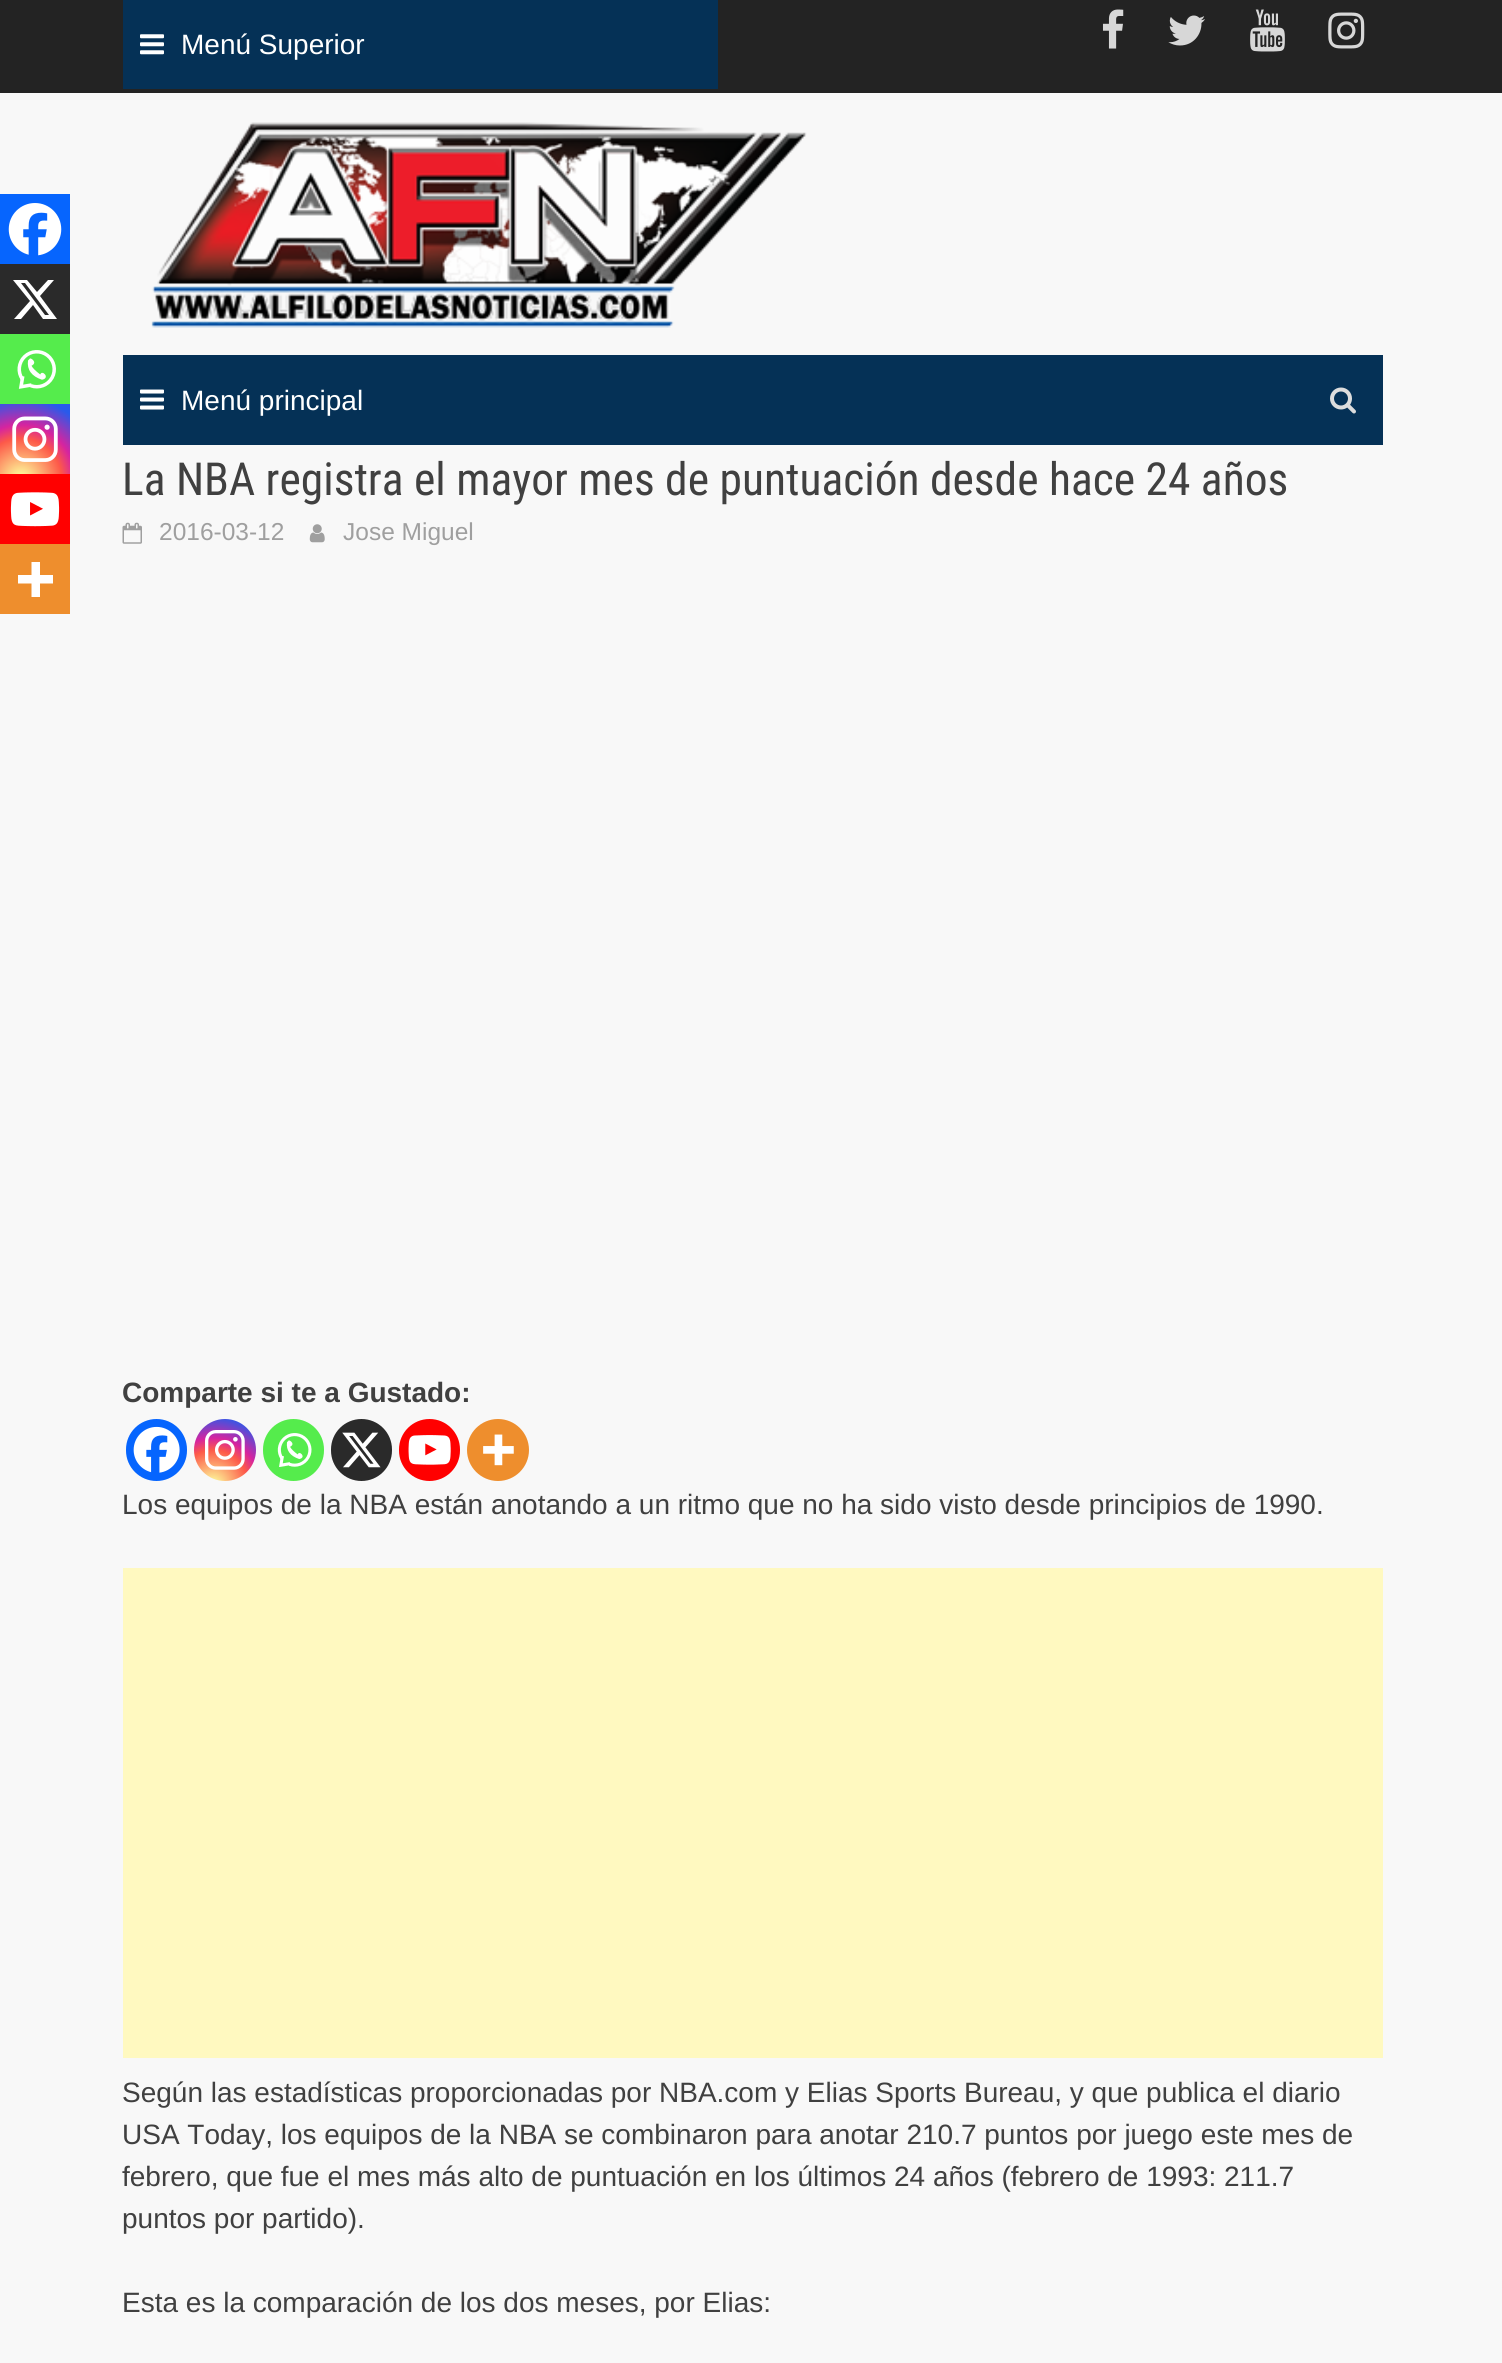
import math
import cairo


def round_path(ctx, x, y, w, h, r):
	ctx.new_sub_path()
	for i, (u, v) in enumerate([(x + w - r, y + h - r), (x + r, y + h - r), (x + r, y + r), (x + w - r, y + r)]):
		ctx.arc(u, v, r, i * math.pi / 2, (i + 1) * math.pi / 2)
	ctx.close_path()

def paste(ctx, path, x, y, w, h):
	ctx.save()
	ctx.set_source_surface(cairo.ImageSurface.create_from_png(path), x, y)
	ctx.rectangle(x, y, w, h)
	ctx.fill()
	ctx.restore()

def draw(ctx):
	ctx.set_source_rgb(0.969, 0.969, 0.969)
	ctx.paint()
	ctx.set_source_rgb(0.137, 0.137, 0.137)
	ctx.rectangle(0, 0, 1502, 93)
	ctx.fill()
	ctx.set_source_rgb(0.02, 0.192, 0.337)
	ctx.rectangle(123, 0, 595, 89)
	ctx.fill()
	paste(ctx, 'media/1.png', 140, 34, 24, 21)
	ctx.select_font_face('Liberation Sans')
	ctx.set_font_size(28)
	ctx.set_source_rgb(1, 1, 1)
	ctx.move_to(181, 54)
	ctx.show_text('Menú Superior')
	paste(ctx, 'media/2.png', 1102, 9, 22, 40)
	paste(ctx, 'media/3.png', 1168, 15, 37, 31)
	paste(ctx, 'media/4.png', 1250, 9, 35, 43)
	paste(ctx, 'media/5.png', 1328, 12, 37, 37)
	paste(ctx, 'media/6.png', 151, 122, 656, 206)
	ctx.set_source_rgb(0.02, 0.192, 0.337)
	ctx.rectangle(123, 355, 1260, 90)
	ctx.fill()
	paste(ctx, 'media/7.png', 140, 389, 24, 21)
	ctx.set_source_rgb(1, 1, 1)
	ctx.move_to(181, 410)
	ctx.show_text('Menú principal')
	paste(ctx, 'media/8.png', 1330, 387, 26, 27)
	ctx.select_font_face('Roboto Condensed')
	ctx.set_font_size(45.5)
	ctx.set_source_rgb(0.251, 0.251, 0.251)
	ctx.move_to(122, 495)
	ctx.show_text('La NBA registra el mayor mes de puntuación desde hace 24 años')
	paste(ctx, 'media/9.png', 122, 522, 20, 22)
	ctx.select_font_face('Liberation Sans')
	ctx.set_font_size(24.5)
	ctx.set_source_rgb(0.624, 0.624, 0.624)
	ctx.move_to(159, 540)
	ctx.show_text('2016-03-12')
	paste(ctx, 'media/10.png', 309, 524, 16, 19)
	ctx.move_to(343, 540)
	ctx.show_text('Jose Miguel')
	ctx.set_source_rgb(0.027, 0.396, 0.996)
	ctx.rectangle(0, 194, 70, 70)
	ctx.fill()
	paste(ctx, 'media/11.png', 8, 203, 54, 53)
	ctx.set_source_rgb(0.165, 0.165, 0.165)
	ctx.rectangle(0, 264, 70, 70)
	ctx.fill()
	ctx.set_source_rgb(1, 1, 1)
	ctx.new_path()
	ctx.move_to(48, 280)
	ctx.line_to(54, 280)
	ctx.line_to(40, 296)
	ctx.line_to(57, 319)
	ctx.line_to(43, 319)
	ctx.line_to(33, 305)
	ctx.line_to(21, 319)
	ctx.line_to(14, 319)
	ctx.line_to(30, 301)
	ctx.line_to(13, 280)
	ctx.line_to(27, 280)
	ctx.line_to(37, 292)
	ctx.close_path()
	ctx.move_to(45, 315)
	ctx.line_to(49, 315)
	ctx.line_to(25, 283)
	ctx.line_to(21, 283)
	ctx.close_path()
	ctx.fill()
	ctx.set_source_rgb(0.333, 0.922, 0.298)
	ctx.rectangle(0, 334, 70, 70)
	ctx.fill()
	paste(ctx, 'media/12.png', 17, 350, 39, 39)
	gradient = cairo.RadialGradient(21, 479, 0, 21, 479, 90)
	gradient.add_color_stop_rgba(0, 0.992, 0.957, 0.592, 1)
	gradient.add_color_stop_rgba(0.05, 0.992, 0.957, 0.592, 1)
	gradient.add_color_stop_rgba(0.45, 0.992, 0.349, 0.286, 1)
	gradient.add_color_stop_rgba(0.6, 0.839, 0.141, 0.624, 1)
	gradient.add_color_stop_rgba(0.9, 0.157, 0.353, 0.922, 1)
	ctx.set_source(gradient)
	ctx.rectangle(0, 404, 70, 70)
	ctx.fill()
	paste(ctx, 'media/13.png', 12, 416, 46, 46)
	ctx.set_source_rgb(1, 0, 0)
	ctx.rectangle(0, 474, 70, 70)
	ctx.fill()
	paste(ctx, 'media/14.png', 10, 492, 50, 35)
	ctx.set_source_rgb(0.933, 0.557, 0.176)
	ctx.rectangle(0, 544, 70, 70)
	ctx.fill()
	ctx.set_source_rgb(1, 1, 1)
	ctx.set_fill_rule(cairo.FILL_RULE_EVEN_ODD)
	ctx.new_path()
	ctx.move_to(40, 575)
	ctx.line_to(40, 562)
	ctx.line_to(31.5, 562)
	ctx.line_to(31.5, 575)
	ctx.line_to(18, 575)
	ctx.line_to(18, 583.5)
	ctx.line_to(31.5, 583.5)
	ctx.line_to(31.5, 597)
	ctx.line_to(40, 597)
	ctx.line_to(40, 583.5)
	ctx.line_to(53, 583.5)
	ctx.line_to(53, 575)
	ctx.close_path()
	ctx.fill()
	ctx.select_font_face('Liberation Sans', cairo.FONT_SLANT_NORMAL, cairo.FONT_WEIGHT_BOLD)
	ctx.set_font_size(28)
	ctx.set_source_rgb(0.251, 0.251, 0.251)
	ctx.move_to(122, 1402)
	ctx.show_text('Comparte si te a Gustado:')
	ctx.set_source_rgb(0.027, 0.396, 0.996)
	round_path(ctx, 126, 1419, 61, 62, 30.5)
	ctx.fill()
	paste(ctx, 'media/15.png', 133, 1426, 47, 47)
	gradient = cairo.RadialGradient(213, 1485, 0, 213, 1485, 78)
	gradient.add_color_stop_rgba(0, 0.992, 0.957, 0.592, 1)
	gradient.add_color_stop_rgba(0.05, 0.992, 0.957, 0.592, 1)
	gradient.add_color_stop_rgba(0.45, 0.992, 0.349, 0.286, 1)
	gradient.add_color_stop_rgba(0.6, 0.839, 0.141, 0.624, 1)
	gradient.add_color_stop_rgba(0.9, 0.157, 0.353, 0.922, 1)
	ctx.set_source(gradient)
	ctx.arc(225, 1450, 31, 0, 2 * math.pi)
	ctx.fill()
	paste(ctx, 'media/16.png', 205, 1430, 40, 40)
	ctx.set_source_rgb(0.333, 0.922, 0.298)
	round_path(ctx, 263, 1419, 61, 62, 30.5)
	ctx.fill()
	paste(ctx, 'media/17.png', 277, 1433, 35, 34)
	ctx.set_source_rgb(0.165, 0.165, 0.165)
	round_path(ctx, 331, 1419, 61, 62, 30.5)
	ctx.fill()
	paste(ctx, 'media/18.png', 342, 1432, 39, 36)
	ctx.set_source_rgb(1, 0, 0)
	round_path(ctx, 399, 1419, 61, 62, 30.5)
	ctx.fill()
	paste(ctx, 'media/19.png', 408, 1435, 43, 30)
	ctx.set_source_rgb(0.933, 0.557, 0.176)
	ctx.arc(498, 1450, 31, 0, 2 * math.pi)
	ctx.fill()
	paste(ctx, 'media/20.png', 483, 1434, 31, 32)
	ctx.select_font_face('Liberation Sans')
	ctx.set_source_rgb(0.251, 0.251, 0.251)
	ctx.move_to(122, 1514)
	ctx.show_text('Los equipos de la NBA están anotando a un ritmo que no ha sido visto desde principios de 1990.')
	ctx.set_source_rgb(1, 0.976, 0.753)
	ctx.rectangle(123, 1568, 1260, 490)
	ctx.fill()
	ctx.set_source_rgb(0.251, 0.251, 0.251)
	for x, y, s in [
		(122, 2102, 'Según las estadísticas proporcionadas por NBA.com y Elias Sports Bureau, y que publica el diario'),
		(122, 2144, 'USA Today, los equipos de la NBA se combinaron para anotar 210.7 puntos por juego este mes de'),
		(122, 2186, 'febrero, que fue el mes más alto de puntuación en los últimos 24 años (febrero de 1993: 211.7'),
		(122, 2228, 'puntos por partido).'),
		(122, 2312, 'Esta es la comparación de los dos meses, por Elias:'),
	]:
		ctx.move_to(x, y)
		ctx.show_text(s)


surface = cairo.ImageSurface(cairo.FORMAT_RGB24, 1502, 2363)
ctx = cairo.Context(surface)
options = cairo.FontOptions()
options.set_hint_metrics(cairo.HINT_METRICS_OFF)
options.set_hint_style(cairo.HINT_STYLE_NONE)
ctx.set_font_options(options)
ctx.set_miter_limit(4)
draw(ctx)
surface.write_to_png('image.png')
